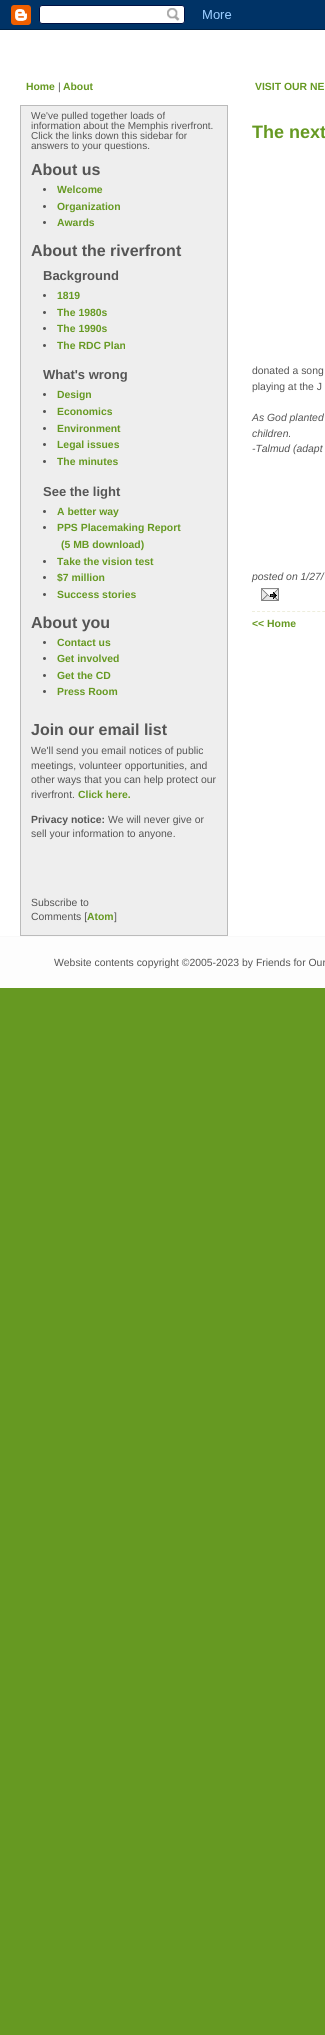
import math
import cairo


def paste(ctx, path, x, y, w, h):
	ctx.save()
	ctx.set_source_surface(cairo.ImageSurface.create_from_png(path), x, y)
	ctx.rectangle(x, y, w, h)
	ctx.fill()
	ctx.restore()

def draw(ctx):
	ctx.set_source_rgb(0.4, 0.6, 0.133)
	ctx.paint()
	paste(ctx, 'media/1.png', 0, 0, 325, 30)
	ctx.set_source_rgb(1, 1, 1)
	ctx.rectangle(0, 30, 325, 906)
	ctx.fill()
	ctx.select_font_face('Liberation Sans', cairo.FONT_SLANT_NORMAL, cairo.FONT_WEIGHT_BOLD)
	ctx.set_font_size(10.4)
	ctx.set_source_rgb(0.4, 0.6, 0.133)
	ctx.move_to(26, 90)
	ctx.show_text('Home')
	ctx.select_font_face('Liberation Sans')
	ctx.set_source_rgb(0.333, 0.333, 0.333)
	ctx.move_to(58, 90)
	ctx.show_text('|')
	ctx.select_font_face('Liberation Sans', cairo.FONT_SLANT_NORMAL, cairo.FONT_WEIGHT_BOLD)
	ctx.set_source_rgb(0.4, 0.6, 0.133)
	ctx.move_to(63, 90)
	ctx.show_text('About')
	ctx.move_to(255, 90)
	ctx.show_text('VISIT OUR NE')
	ctx.set_source_rgb(0.933, 0.933, 0.933)
	ctx.rectangle(20.5, 105.5, 207, 830)
	ctx.fill_preserve()
	ctx.set_source_rgb(0.733, 0.733, 0.733)
	ctx.set_line_width(1)
	ctx.stroke()
	ctx.select_font_face('Liberation Sans')
	ctx.set_font_size(10)
	ctx.set_source_rgb(0.333, 0.333, 0.333)
	for x, y, s in [
		(31, 119, 'We\'ve pulled together loads of'),
		(31, 129, 'information about the Memphis riverfront.'),
		(31, 139, 'Click the links down this sidebar for'),
		(31, 149, 'answers to your questions.'),
	]:
		ctx.move_to(x, y)
		ctx.show_text(s)
	ctx.select_font_face('Liberation Sans', cairo.FONT_SLANT_NORMAL, cairo.FONT_WEIGHT_BOLD)
	ctx.set_font_size(16)
	ctx.move_to(31, 175)
	ctx.show_text('About us')
	ctx.new_path()
	ctx.arc(44.5, 189.5, 1.5, 0, 2 * math.pi)
	ctx.fill()
	ctx.set_font_size(10.4)
	ctx.set_source_rgb(0.4, 0.6, 0.133)
	ctx.move_to(57, 193)
	ctx.show_text('Welcome')
	ctx.set_source_rgb(0.333, 0.333, 0.333)
	ctx.new_path()
	ctx.arc(44.5, 206.5, 1.5, 0, 2 * math.pi)
	ctx.fill()
	ctx.set_source_rgb(0.4, 0.6, 0.133)
	ctx.move_to(57, 210)
	ctx.show_text('Organization')
	ctx.set_source_rgb(0.333, 0.333, 0.333)
	ctx.new_path()
	ctx.arc(44.5, 222.5, 1.5, 0, 2 * math.pi)
	ctx.fill()
	ctx.set_source_rgb(0.4, 0.6, 0.133)
	ctx.move_to(57, 226)
	ctx.show_text('Awards')
	ctx.set_font_size(16)
	ctx.set_source_rgb(0.333, 0.333, 0.333)
	ctx.move_to(31, 256)
	ctx.show_text('About the riverfront')
	ctx.set_font_size(13)
	ctx.move_to(43, 280)
	ctx.show_text('Background')
	ctx.new_path()
	ctx.arc(44.5, 295.5, 1.5, 0, 2 * math.pi)
	ctx.fill()
	ctx.set_font_size(10.4)
	ctx.set_source_rgb(0.4, 0.6, 0.133)
	ctx.move_to(57, 299)
	ctx.show_text('1819')
	ctx.set_source_rgb(0.333, 0.333, 0.333)
	ctx.new_path()
	ctx.arc(44.5, 312.5, 1.5, 0, 2 * math.pi)
	ctx.fill()
	ctx.set_source_rgb(0.4, 0.6, 0.133)
	ctx.move_to(57, 316)
	ctx.show_text('The 1980s')
	ctx.set_source_rgb(0.333, 0.333, 0.333)
	ctx.new_path()
	ctx.arc(44.5, 328.5, 1.5, 0, 2 * math.pi)
	ctx.fill()
	ctx.set_source_rgb(0.4, 0.6, 0.133)
	ctx.move_to(57, 332)
	ctx.show_text('The 1990s')
	ctx.set_source_rgb(0.333, 0.333, 0.333)
	ctx.new_path()
	ctx.arc(44.5, 345.5, 1.5, 0, 2 * math.pi)
	ctx.fill()
	ctx.set_source_rgb(0.4, 0.6, 0.133)
	ctx.move_to(57, 349)
	ctx.show_text('The RDC Plan')
	ctx.set_font_size(13)
	ctx.set_source_rgb(0.333, 0.333, 0.333)
	ctx.move_to(43, 379)
	ctx.show_text('What\'s wrong')
	ctx.new_path()
	ctx.arc(44.5, 394.5, 1.5, 0, 2 * math.pi)
	ctx.fill()
	ctx.set_font_size(10.4)
	ctx.set_source_rgb(0.4, 0.6, 0.133)
	ctx.move_to(57, 398)
	ctx.show_text('Design')
	ctx.set_source_rgb(0.333, 0.333, 0.333)
	ctx.new_path()
	ctx.arc(44.5, 411.5, 1.5, 0, 2 * math.pi)
	ctx.fill()
	ctx.set_source_rgb(0.4, 0.6, 0.133)
	ctx.move_to(57, 415)
	ctx.show_text('Economics')
	ctx.set_source_rgb(0.333, 0.333, 0.333)
	ctx.new_path()
	ctx.arc(44.5, 428.5, 1.5, 0, 2 * math.pi)
	ctx.fill()
	ctx.set_source_rgb(0.4, 0.6, 0.133)
	ctx.move_to(57, 432)
	ctx.show_text('Environment')
	ctx.set_source_rgb(0.333, 0.333, 0.333)
	ctx.new_path()
	ctx.arc(44.5, 444.5, 1.5, 0, 2 * math.pi)
	ctx.fill()
	ctx.set_source_rgb(0.4, 0.6, 0.133)
	ctx.move_to(57, 448)
	ctx.show_text('Legal issues')
	ctx.set_source_rgb(0.333, 0.333, 0.333)
	ctx.new_path()
	ctx.arc(44.5, 461.5, 1.5, 0, 2 * math.pi)
	ctx.fill()
	ctx.set_source_rgb(0.4, 0.6, 0.133)
	ctx.move_to(57, 465)
	ctx.show_text('The minutes')
	ctx.set_font_size(13)
	ctx.set_source_rgb(0.333, 0.333, 0.333)
	ctx.move_to(43, 496)
	ctx.show_text('See the light')
	ctx.new_path()
	ctx.arc(44.5, 511.5, 1.5, 0, 2 * math.pi)
	ctx.fill()
	ctx.set_font_size(10.4)
	ctx.set_source_rgb(0.4, 0.6, 0.133)
	ctx.move_to(57, 515)
	ctx.show_text('A better way')
	ctx.set_source_rgb(0.333, 0.333, 0.333)
	ctx.new_path()
	ctx.arc(44.5, 527.5, 1.5, 0, 2 * math.pi)
	ctx.fill()
	ctx.set_source_rgb(0.4, 0.6, 0.133)
	ctx.move_to(57, 531)
	ctx.show_text('PPS Placemaking Report')
	ctx.move_to(61, 548)
	ctx.show_text('(5 MB download)')
	ctx.set_source_rgb(0.333, 0.333, 0.333)
	ctx.new_path()
	ctx.arc(44.5, 561.5, 1.5, 0, 2 * math.pi)
	ctx.fill()
	ctx.set_source_rgb(0.4, 0.6, 0.133)
	ctx.move_to(57, 565)
	ctx.show_text('Take the vision test')
	ctx.set_source_rgb(0.333, 0.333, 0.333)
	ctx.new_path()
	ctx.arc(44.5, 577.5, 1.5, 0, 2 * math.pi)
	ctx.fill()
	ctx.set_source_rgb(0.4, 0.6, 0.133)
	ctx.move_to(57, 581)
	ctx.show_text('$7 million')
	ctx.set_source_rgb(0.333, 0.333, 0.333)
	ctx.new_path()
	ctx.arc(44.5, 594.5, 1.5, 0, 2 * math.pi)
	ctx.fill()
	ctx.set_source_rgb(0.4, 0.6, 0.133)
	ctx.move_to(57, 598)
	ctx.show_text('Success stories')
	ctx.set_font_size(16)
	ctx.set_source_rgb(0.333, 0.333, 0.333)
	ctx.move_to(31, 628)
	ctx.show_text('About you')
	ctx.new_path()
	ctx.arc(44.5, 642.5, 1.5, 0, 2 * math.pi)
	ctx.fill()
	ctx.set_font_size(10.4)
	ctx.set_source_rgb(0.4, 0.6, 0.133)
	ctx.move_to(57, 646)
	ctx.show_text('Contact us')
	ctx.set_source_rgb(0.333, 0.333, 0.333)
	ctx.new_path()
	ctx.arc(44.5, 658.5, 1.5, 0, 2 * math.pi)
	ctx.fill()
	ctx.set_source_rgb(0.4, 0.6, 0.133)
	ctx.move_to(57, 662)
	ctx.show_text('Get involved')
	ctx.set_source_rgb(0.333, 0.333, 0.333)
	ctx.new_path()
	ctx.arc(44.5, 675.5, 1.5, 0, 2 * math.pi)
	ctx.fill()
	ctx.set_source_rgb(0.4, 0.6, 0.133)
	ctx.move_to(57, 679)
	ctx.show_text('Get the CD')
	ctx.set_source_rgb(0.333, 0.333, 0.333)
	ctx.new_path()
	ctx.arc(44.5, 691.5, 1.5, 0, 2 * math.pi)
	ctx.fill()
	ctx.set_source_rgb(0.4, 0.6, 0.133)
	ctx.move_to(57, 695)
	ctx.show_text('Press Room')
	ctx.set_font_size(16)
	ctx.set_source_rgb(0.333, 0.333, 0.333)
	ctx.move_to(31, 735)
	ctx.show_text('Join our email list')
	ctx.select_font_face('Liberation Sans')
	ctx.set_font_size(10.4)
	for x, y, s in [
		(31, 754, 'We\'ll send you email notices of public'),
		(31, 769, 'meetings, volunteer opportunities, and'),
		(31, 783, 'other ways that you can help protect our'),
		(31, 798, 'riverfront.'),
	]:
		ctx.move_to(x, y)
		ctx.show_text(s)
	ctx.select_font_face('Liberation Sans', cairo.FONT_SLANT_NORMAL, cairo.FONT_WEIGHT_BOLD)
	ctx.set_source_rgb(0.4, 0.6, 0.133)
	ctx.move_to(78, 798)
	ctx.show_text('Click here.')
	ctx.set_source_rgb(0.333, 0.333, 0.333)
	ctx.move_to(31, 823)
	ctx.show_text('Privacy notice:')
	ctx.select_font_face('Liberation Sans')
	for x, y, s in [
		(108, 823, 'We will never give or'),
		(31, 837, 'sell your information to anyone.'),
		(31, 906, 'Subscribe to'),
		(31, 920, 'Comments ['),
	]:
		ctx.move_to(x, y)
		ctx.show_text(s)
	ctx.select_font_face('Liberation Sans', cairo.FONT_SLANT_NORMAL, cairo.FONT_WEIGHT_BOLD)
	ctx.set_source_rgb(0.4, 0.6, 0.133)
	ctx.move_to(87, 920)
	ctx.show_text('Atom')
	ctx.select_font_face('Liberation Sans')
	ctx.set_source_rgb(0.333, 0.333, 0.333)
	ctx.move_to(114, 920)
	ctx.show_text(']')
	ctx.select_font_face('Liberation Sans', cairo.FONT_SLANT_NORMAL, cairo.FONT_WEIGHT_BOLD)
	ctx.set_font_size(18)
	ctx.set_source_rgb(0.4, 0.6, 0.133)
	ctx.move_to(252, 138)
	ctx.show_text('The next')
	ctx.select_font_face('Liberation Sans')
	ctx.set_font_size(10.4)
	ctx.set_source_rgb(0.333, 0.333, 0.333)
	ctx.move_to(252, 374)
	ctx.show_text('donated a song')
	ctx.move_to(252, 390)
	ctx.show_text('playing at the J')
	ctx.select_font_face('Liberation Sans', cairo.FONT_SLANT_ITALIC)
	for x, y, s in [
		(252, 421, 'As God planted'),
		(252, 437, 'children.'),
		(252, 452, '-Talmud (adapt'),
		(252, 580, 'posted on 1/27/'),
	]:
		ctx.move_to(x, y)
		ctx.show_text(s)
	paste(ctx, 'media/2.png', 261, 588, 18, 13)
	ctx.new_path()
	ctx.move_to(252, 611.5)
	ctx.line_to(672, 611.5)
	ctx.set_source_rgb(0.933, 0.933, 0.867)
	ctx.set_dash([3, 2.02])
	ctx.stroke()
	ctx.select_font_face('Liberation Sans', cairo.FONT_SLANT_NORMAL, cairo.FONT_WEIGHT_BOLD)
	ctx.set_source_rgb(0.4, 0.6, 0.133)
	ctx.move_to(252, 627)
	ctx.show_text('<< Home')
	ctx.set_source_rgb(0.992, 0.992, 0.992)
	ctx.rectangle(0, 937, 325, 51)
	ctx.fill()
	ctx.set_source_rgb(0.976, 0.976, 0.976)
	ctx.rectangle(0, 936, 325, 1)
	ctx.fill()
	ctx.select_font_face('Liberation Sans')
	ctx.set_source_rgb(0.333, 0.333, 0.333)
	ctx.move_to(54, 966)
	ctx.show_text('Website contents copyright ©2005-2023 by Friends for Our')


surface = cairo.ImageSurface(cairo.FORMAT_RGB24, 325, 2035)
ctx = cairo.Context(surface)
options = cairo.FontOptions()
options.set_hint_metrics(cairo.HINT_METRICS_OFF)
options.set_hint_style(cairo.HINT_STYLE_NONE)
ctx.set_font_options(options)
ctx.set_miter_limit(4)
draw(ctx)
surface.write_to_png('image.png')
